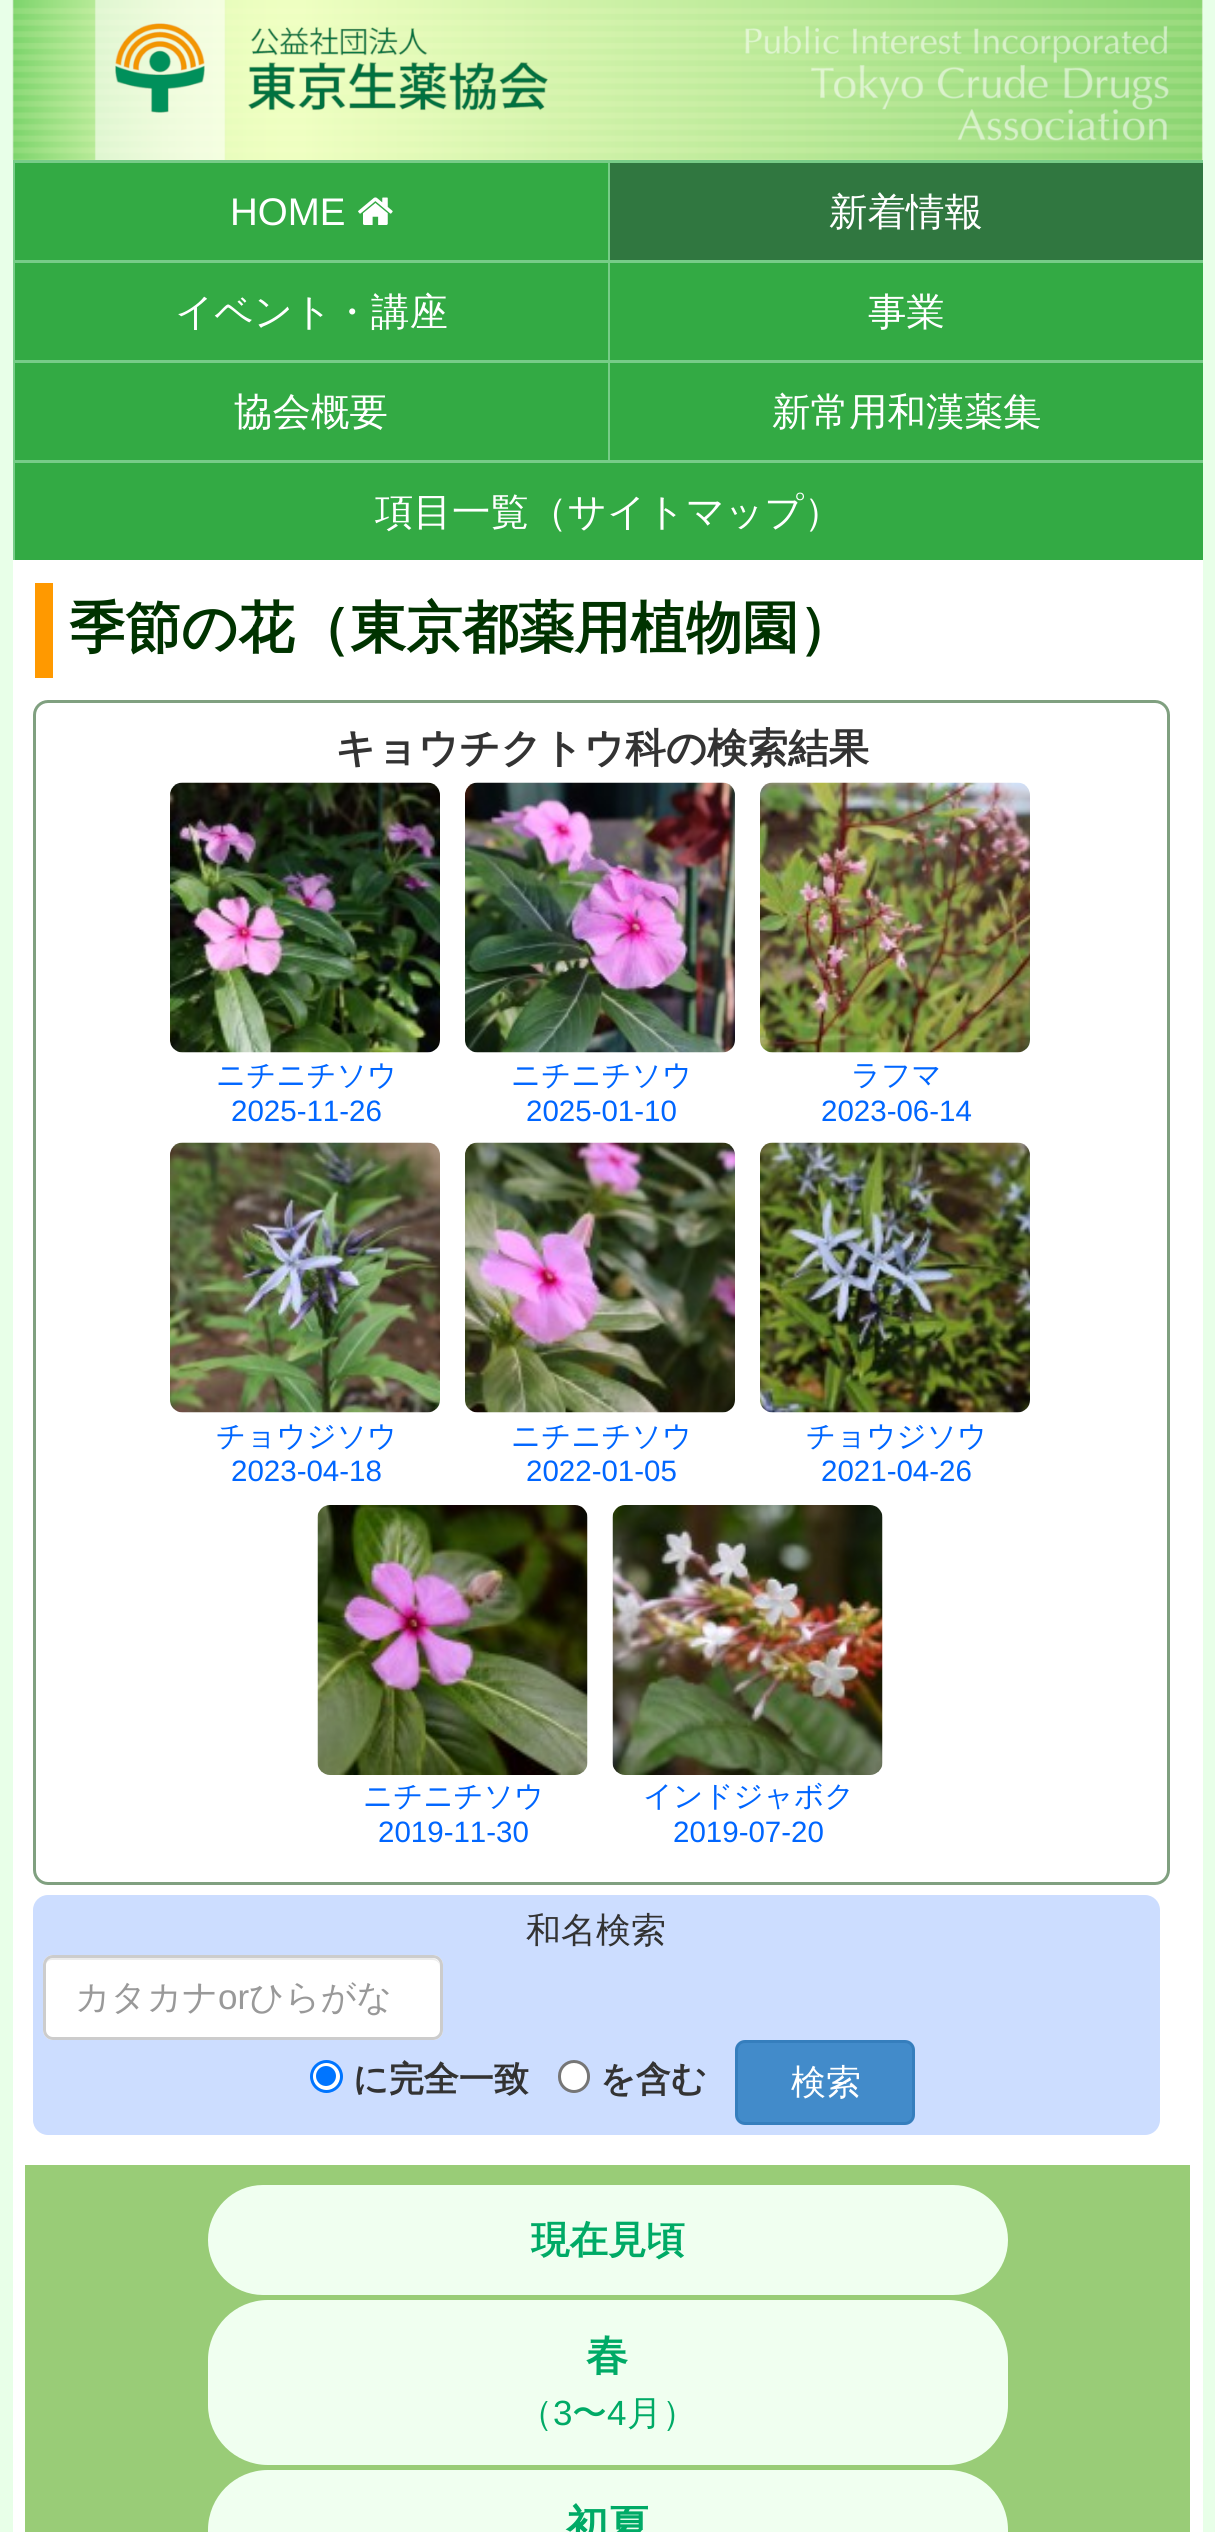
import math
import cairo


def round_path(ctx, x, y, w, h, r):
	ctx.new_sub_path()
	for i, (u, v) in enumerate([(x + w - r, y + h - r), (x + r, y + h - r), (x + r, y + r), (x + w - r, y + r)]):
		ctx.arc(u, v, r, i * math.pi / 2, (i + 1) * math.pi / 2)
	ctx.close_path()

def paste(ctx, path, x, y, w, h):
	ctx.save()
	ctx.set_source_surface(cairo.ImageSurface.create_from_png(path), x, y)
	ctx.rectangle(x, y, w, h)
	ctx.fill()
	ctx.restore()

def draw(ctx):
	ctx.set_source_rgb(0.91, 1, 0.91)
	ctx.paint()
	ctx.set_source_rgb(1, 1, 1)
	ctx.rectangle(1202, 0, 1, 160)
	ctx.fill()
	paste(ctx, 'media/1.png', 12, 0, 1191, 160)
	ctx.rectangle(13, 560, 1190, 1972)
	ctx.fill()
	ctx.set_source_rgb(0.467, 0.8, 0.533)
	ctx.rectangle(13, 160, 1190, 3)
	ctx.rectangle(13, 160, 3, 100)
	ctx.fill()
	ctx.set_source_rgb(0.2, 0.667, 0.267)
	ctx.rectangle(15, 163, 593, 97)
	ctx.fill()
	ctx.select_font_face('Liberation Sans')
	ctx.set_font_size(38.5)
	ctx.set_source_rgb(1, 1, 1)
	ctx.move_to(230, 225)
	ctx.show_text('HOME')
	paste(ctx, 'media/2.png', 358, 197, 35, 28)
	ctx.set_source_rgb(0.467, 0.8, 0.533)
	ctx.rectangle(608, 160, 3, 100)
	ctx.fill()
	ctx.set_source_rgb(0.188, 0.467, 0.251)
	ctx.rectangle(610, 163, 593, 97)
	ctx.fill()
	ctx.select_font_face('WenQuanYi Zen Hei Medium')
	ctx.set_source_rgb(1, 1, 1)
	ctx.move_to(829, 225)
	ctx.show_text('新着情報')
	ctx.set_source_rgb(0.467, 0.8, 0.533)
	ctx.rectangle(13, 260, 1190, 3)
	ctx.rectangle(13, 260, 3, 100)
	ctx.fill()
	ctx.set_source_rgb(0.2, 0.667, 0.267)
	ctx.rectangle(15, 263, 593, 97)
	ctx.fill()
	ctx.set_source_rgb(1, 1, 1)
	ctx.move_to(175, 325)
	ctx.show_text('イベント・講座')
	ctx.set_source_rgb(0.467, 0.8, 0.533)
	ctx.rectangle(608, 260, 3, 100)
	ctx.fill()
	ctx.set_source_rgb(0.2, 0.667, 0.267)
	ctx.rectangle(610, 263, 593, 97)
	ctx.fill()
	ctx.set_source_rgb(1, 1, 1)
	ctx.move_to(868, 325)
	ctx.show_text('事業')
	ctx.set_source_rgb(0.467, 0.8, 0.533)
	ctx.rectangle(13, 360, 1190, 3)
	ctx.rectangle(13, 360, 3, 100)
	ctx.fill()
	ctx.set_source_rgb(0.2, 0.667, 0.267)
	ctx.rectangle(15, 363, 593, 97)
	ctx.fill()
	ctx.set_source_rgb(1, 1, 1)
	ctx.move_to(234, 425)
	ctx.show_text('協会概要')
	ctx.set_source_rgb(0.467, 0.8, 0.533)
	ctx.rectangle(608, 360, 3, 100)
	ctx.fill()
	ctx.set_source_rgb(0.2, 0.667, 0.267)
	ctx.rectangle(610, 363, 593, 97)
	ctx.fill()
	ctx.set_source_rgb(1, 1, 1)
	ctx.move_to(772, 425)
	ctx.show_text('新常用和漢薬集')
	ctx.set_source_rgb(0.467, 0.8, 0.533)
	ctx.rectangle(13, 460, 1190, 3)
	ctx.rectangle(13, 460, 3, 100)
	ctx.fill()
	ctx.set_source_rgb(0.2, 0.667, 0.267)
	ctx.rectangle(15, 463, 1188, 97)
	ctx.fill()
	ctx.set_source_rgb(1, 1, 1)
	ctx.move_to(375, 525)
	ctx.show_text('項目一覧（サイトマップ）')
	ctx.set_source_rgb(1, 0.6, 0)
	ctx.rectangle(35, 583, 18, 95)
	ctx.fill()
	ctx.select_font_face('WenQuanYi Zen Hei', cairo.FONT_SLANT_NORMAL, cairo.FONT_WEIGHT_BOLD)
	ctx.set_font_size(56)
	ctx.set_source_rgb(0, 0.2, 0)
	ctx.move_to(69, 647)
	ctx.show_text('季節の花（東京都薬用植物園）')
	round_path(ctx, 34.5, 701.5, 1134, 1182, 13.5)
	ctx.set_source_rgb(0.502, 0.627, 0.502)
	ctx.set_line_width(3)
	ctx.stroke()
	ctx.set_font_size(40.5)
	ctx.set_source_rgb(0.2, 0.2, 0.2)
	ctx.move_to(335, 762)
	ctx.show_text('キョウチクトウ科の検索結果')
	paste(ctx, 'media/3.png', 170, 782, 270, 271)
	ctx.select_font_face('WenQuanYi Zen Hei Medium')
	ctx.set_font_size(29.5)
	ctx.set_source_rgb(0, 0.4, 1)
	ctx.move_to(216, 1085)
	ctx.show_text('ニチニチソウ')
	ctx.select_font_face('Liberation Sans')
	ctx.move_to(231, 1121)
	ctx.show_text('2025-11-26')
	paste(ctx, 'media/4.png', 465, 782, 270, 271)
	ctx.select_font_face('WenQuanYi Zen Hei Medium')
	ctx.move_to(511, 1085)
	ctx.show_text('ニチニチソウ')
	ctx.select_font_face('Liberation Sans')
	ctx.move_to(526, 1121)
	ctx.show_text('2025-01-10')
	paste(ctx, 'media/5.png', 760, 782, 270, 271)
	ctx.select_font_face('WenQuanYi Zen Hei Medium')
	ctx.move_to(851, 1085)
	ctx.show_text('ラフマ')
	ctx.select_font_face('Liberation Sans')
	ctx.move_to(821, 1121)
	ctx.show_text('2023-06-14')
	paste(ctx, 'media/6.png', 170, 1142, 270, 271)
	ctx.select_font_face('WenQuanYi Zen Hei Medium')
	ctx.move_to(216, 1446)
	ctx.show_text('チョウジソウ')
	ctx.select_font_face('Liberation Sans')
	ctx.move_to(231, 1481)
	ctx.show_text('2023-04-18')
	paste(ctx, 'media/7.png', 465, 1142, 270, 271)
	ctx.select_font_face('WenQuanYi Zen Hei Medium')
	ctx.move_to(511, 1446)
	ctx.show_text('ニチニチソウ')
	ctx.select_font_face('Liberation Sans')
	ctx.move_to(526, 1481)
	ctx.show_text('2022-01-05')
	paste(ctx, 'media/8.png', 760, 1142, 270, 271)
	ctx.select_font_face('WenQuanYi Zen Hei Medium')
	ctx.move_to(806, 1446)
	ctx.show_text('チョウジソウ')
	ctx.select_font_face('Liberation Sans')
	ctx.move_to(821, 1481)
	ctx.show_text('2021-04-26')
	paste(ctx, 'media/9.png', 317, 1505, 271, 270)
	ctx.select_font_face('WenQuanYi Zen Hei Medium')
	ctx.move_to(363, 1806)
	ctx.show_text('ニチニチソウ')
	ctx.select_font_face('Liberation Sans')
	ctx.move_to(378, 1842)
	ctx.show_text('2019-11-30')
	paste(ctx, 'media/10.png', 612, 1505, 271, 270)
	ctx.select_font_face('WenQuanYi Zen Hei Medium')
	ctx.move_to(643, 1806)
	ctx.show_text('インドジャボク')
	ctx.select_font_face('Liberation Sans')
	ctx.move_to(673, 1842)
	ctx.show_text('2019-07-20')
	ctx.set_source_rgb(0.8, 0.867, 1)
	round_path(ctx, 33, 1895, 1127, 240, 15)
	ctx.fill()
	ctx.select_font_face('WenQuanYi Zen Hei Medium')
	ctx.set_font_size(35)
	ctx.set_source_rgb(0.2, 0.2, 0.2)
	ctx.move_to(526, 1942)
	ctx.show_text('和名検索')
	ctx.set_source_rgb(1, 1, 1)
	round_path(ctx, 43, 1955, 400, 85, 10)
	ctx.fill()
	ctx.set_source_rgb(0.925, 0.925, 0.925)
	ctx.new_path()
	ctx.move_to(52, 1960)
	ctx.line_to(432, 1960)
	ctx.curve_to(437, 1960, 440, 1963, 440, 1968)
	ctx.line_to(440, 1966)
	ctx.curve_to(440, 1962, 436, 1958, 432, 1958)
	ctx.line_to(53, 1958)
	ctx.curve_to(49, 1958, 45, 1962, 45, 1966)
	ctx.line_to(45, 1968)
	ctx.curve_to(45, 1963, 48, 1960, 52, 1960)
	ctx.close_path()
	ctx.fill()
	round_path(ctx, 44.5, 1956.5, 397, 82, 8.5)
	ctx.set_source_rgb(0.8, 0.8, 0.8)
	ctx.stroke()
	ctx.set_source_rgb(0.6, 0.6, 0.6)
	ctx.move_to(75, 2009)
	ctx.show_text('カタカナ')
	ctx.select_font_face('Liberation Sans')
	ctx.move_to(218, 2009)
	ctx.show_text('or')
	ctx.select_font_face('WenQuanYi Zen Hei Medium')
	ctx.move_to(249, 2009)
	ctx.show_text('ひらがな')
	ctx.set_source_rgb(1, 1, 1)
	ctx.new_path()
	ctx.arc(326.5, 2076.5, 15, 0, 2 * math.pi)
	ctx.fill_preserve()
	ctx.set_source_rgb(0, 0.459, 1)
	ctx.stroke()
	ctx.arc(326, 2076, 10, 0, 2 * math.pi)
	ctx.fill()
	ctx.select_font_face('WenQuanYi Zen Hei', cairo.FONT_SLANT_NORMAL, cairo.FONT_WEIGHT_BOLD)
	ctx.set_source_rgb(0.2, 0.2, 0.2)
	ctx.move_to(353, 2091)
	ctx.show_text('に完全一致')
	ctx.set_source_rgb(1, 1, 1)
	round_path(ctx, 559.5, 2061.5, 29, 30, 14.5)
	ctx.fill_preserve()
	ctx.set_source_rgb(0.463, 0.463, 0.463)
	ctx.stroke()
	ctx.set_source_rgb(0.2, 0.2, 0.2)
	ctx.move_to(600, 2091)
	ctx.show_text('を含む')
	ctx.set_source_rgb(0.259, 0.545, 0.792)
	round_path(ctx, 736.5, 2041.5, 177, 82, 8.5)
	ctx.fill_preserve()
	ctx.set_source_rgb(0.208, 0.494, 0.741)
	ctx.stroke()
	ctx.select_font_face('WenQuanYi Zen Hei Medium')
	ctx.set_source_rgb(1, 1, 1)
	ctx.move_to(791, 2094)
	ctx.show_text('検索')
	ctx.set_source_rgb(0.6, 0.8, 0.467)
	ctx.rectangle(25, 2165, 1165, 367)
	ctx.fill()
	ctx.set_source_rgb(0.941, 1, 0.941)
	round_path(ctx, 209.5, 2186.5, 797, 107, 53.5)
	ctx.fill_preserve()
	ctx.stroke()
	ctx.select_font_face('WenQuanYi Zen Hei', cairo.FONT_SLANT_NORMAL, cairo.FONT_WEIGHT_BOLD)
	ctx.set_font_size(38.5)
	ctx.set_source_rgb(0, 0.667, 0.4)
	ctx.move_to(531, 2253)
	ctx.show_text('現在見頃')
	ctx.set_source_rgb(0.941, 1, 0.941)
	round_path(ctx, 209.5, 2301.5, 797, 162, 58.5)
	ctx.fill_preserve()
	ctx.stroke()
	ctx.set_font_size(42)
	ctx.set_source_rgb(0, 0.667, 0.4)
	ctx.move_to(586, 2370)
	ctx.show_text('春')
	ctx.select_font_face('WenQuanYi Zen Hei Medium')
	ctx.set_font_size(35)
	ctx.move_to(518, 2425)
	ctx.show_text('（')
	ctx.select_font_face('Liberation Sans')
	ctx.move_to(553, 2425)
	ctx.show_text('3')
	ctx.select_font_face('WenQuanYi Zen Hei Medium')
	ctx.move_to(572, 2425)
	ctx.show_text('〜')
	ctx.select_font_face('Liberation Sans')
	ctx.move_to(607, 2425)
	ctx.show_text('4')
	ctx.select_font_face('WenQuanYi Zen Hei Medium')
	ctx.move_to(627, 2425)
	ctx.show_text('月）')
	ctx.set_source_rgb(0.941, 1, 0.941)
	round_path(ctx, 209.5, 2471.5, 797, 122, 58.5)
	ctx.fill_preserve()
	ctx.stroke()
	ctx.select_font_face('WenQuanYi Zen Hei', cairo.FONT_SLANT_NORMAL, cairo.FONT_WEIGHT_BOLD)
	ctx.set_font_size(42)
	ctx.set_source_rgb(0, 0.667, 0.4)
	ctx.move_to(566, 2540)
	ctx.show_text('初夏')


surface = cairo.ImageSurface(cairo.FORMAT_RGB24, 1215, 2532)
ctx = cairo.Context(surface)
options = cairo.FontOptions()
options.set_hint_metrics(cairo.HINT_METRICS_OFF)
options.set_hint_style(cairo.HINT_STYLE_NONE)
ctx.set_font_options(options)
ctx.set_miter_limit(4)
draw(ctx)
surface.write_to_png('image.png')
